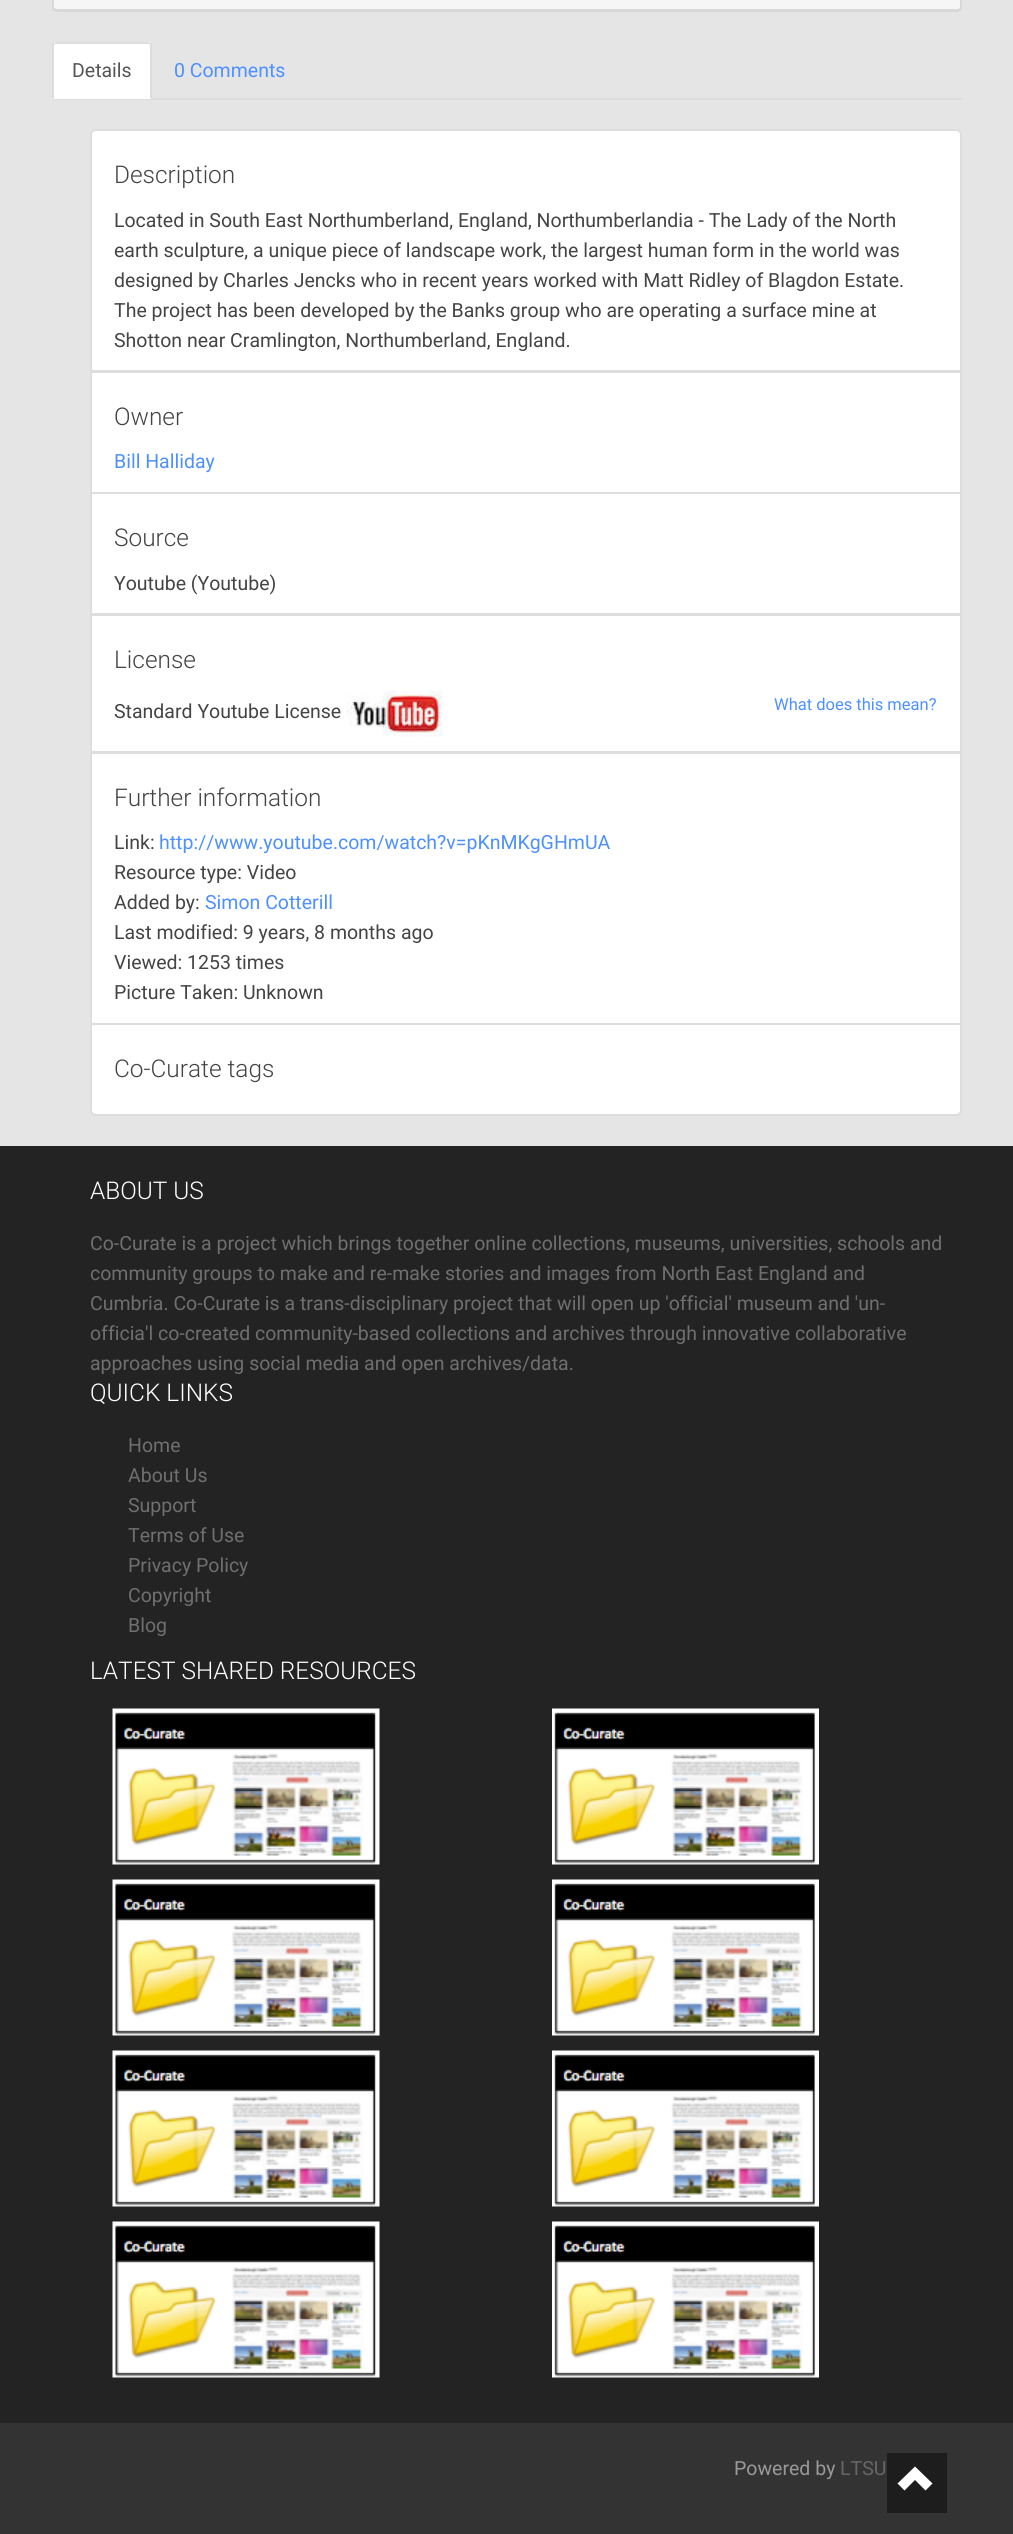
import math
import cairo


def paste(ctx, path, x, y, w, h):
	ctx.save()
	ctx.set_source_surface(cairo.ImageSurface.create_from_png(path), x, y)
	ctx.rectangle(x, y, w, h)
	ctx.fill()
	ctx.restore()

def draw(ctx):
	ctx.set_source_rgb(0.898, 0.898, 0.898)
	ctx.paint()
	ctx.set_source_rgb(0.961, 0.961, 0.961)
	ctx.new_path()
	ctx.move_to(57, -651)
	ctx.line_to(957, -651)
	ctx.curve_to(959, -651, 960, -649, 960, -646)
	ctx.line_to(960, 8)
	ctx.curve_to(960, 8, 959, 9, 957, 9)
	ctx.line_to(57, 9)
	ctx.curve_to(55, 9, 54, 8, 54, 8)
	ctx.line_to(54, -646)
	ctx.curve_to(54, -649, 55, -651, 57, -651)
	ctx.close_path()
	ctx.fill()
	ctx.set_source_rgb(0.847, 0.847, 0.847)
	ctx.set_fill_rule(cairo.FILL_RULE_EVEN_ODD)
	ctx.new_path()
	ctx.move_to(57, -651)
	ctx.line_to(957, -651)
	ctx.curve_to(959, -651, 962, -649, 962, -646)
	ctx.line_to(962, 8)
	ctx.curve_to(962, 10, 959, 12, 957, 12)
	ctx.line_to(57, 12)
	ctx.curve_to(55, 12, 52, 10, 52, 8)
	ctx.line_to(52, -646)
	ctx.curve_to(52, -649, 55, -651, 57, -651)
	ctx.close_path()
	ctx.move_to(57, -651)
	ctx.line_to(957, -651)
	ctx.curve_to(959, -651, 960, -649, 960, -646)
	ctx.line_to(960, 8)
	ctx.curve_to(960, 8, 959, 9, 957, 9)
	ctx.line_to(57, 9)
	ctx.curve_to(55, 9, 54, 8, 54, 8)
	ctx.line_to(54, -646)
	ctx.curve_to(54, -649, 55, -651, 57, -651)
	ctx.close_path()
	ctx.fill()
	ctx.set_source_rgb(0.867, 0.867, 0.867)
	ctx.rectangle(53, 98, 909, 2)
	ctx.fill()
	ctx.set_source_rgb(1, 1, 1)
	ctx.new_path()
	ctx.move_to(56, 42)
	ctx.line_to(149, 42)
	ctx.curve_to(150.5, 42, 152, 43.5, 152, 45)
	ctx.line_to(152, 99)
	ctx.line_to(53, 99)
	ctx.line_to(53, 45)
	ctx.curve_to(53, 43.5, 54.5, 42, 56, 42)
	ctx.close_path()
	ctx.fill()
	ctx.set_source_rgb(0.867, 0.867, 0.867)
	ctx.set_fill_rule(cairo.FILL_RULE_WINDING)
	ctx.new_path()
	ctx.move_to(56, 42)
	ctx.line_to(53, 43)
	ctx.line_to(55, 44)
	ctx.line_to(149, 44)
	ctx.line_to(151, 43)
	ctx.line_to(148, 42)
	ctx.close_path()
	ctx.fill()
	ctx.new_path()
	ctx.move_to(152, 43)
	ctx.line_to(152, 99)
	ctx.line_to(150, 98)
	ctx.line_to(150, 45)
	ctx.line_to(149, 44)
	ctx.line_to(151, 43)
	ctx.close_path()
	ctx.fill()
	ctx.new_path()
	ctx.move_to(52, 99)
	ctx.line_to(52, 43)
	ctx.line_to(53, 43)
	ctx.line_to(55, 44)
	ctx.line_to(54, 45)
	ctx.line_to(54, 98)
	ctx.close_path()
	ctx.fill()
	ctx.select_font_face('Roboto')
	ctx.set_font_size(19.5)
	ctx.set_source_rgb(0.333, 0.333, 0.333)
	ctx.move_to(72, 77)
	ctx.show_text('Details')
	ctx.set_source_rgb(0.302, 0.565, 0.996)
	ctx.move_to(174, 77)
	ctx.show_text('0 Comments')
	ctx.set_source_rgb(1, 1, 1)
	ctx.new_path()
	ctx.move_to(96, 130)
	ctx.line_to(956, 130)
	ctx.curve_to(959, 130, 961, 132, 961, 135)
	ctx.line_to(961, 371)
	ctx.line_to(91, 371)
	ctx.line_to(91, 135)
	ctx.curve_to(91, 132, 93, 130, 96, 130)
	ctx.close_path()
	ctx.fill_preserve()
	ctx.set_source_rgb(0.867, 0.867, 0.867)
	ctx.stroke()
	ctx.select_font_face('Roboto Light')
	ctx.set_font_size(24.4)
	ctx.set_source_rgb(0.267, 0.267, 0.267)
	ctx.move_to(114, 183)
	ctx.show_text('Description')
	ctx.select_font_face('Roboto')
	ctx.set_font_size(19.5)
	for x, y, s in [
		(114, 227, 'Located in South East Northumberland, England, Northumberlandia - The Lady of the North'),
		(114, 257, 'earth sculpture, a unique piece of landscape work, the largest human form in the world was'),
		(114, 287, 'designed by Charles Jencks who in recent years worked with Matt Ridley of Blagdon Estate.'),
		(114, 317, 'The project has been developed by the Banks group who are operating a surface mine at'),
		(114, 347, 'Shotton near Cramlington, Northumberland, England.'),
	]:
		ctx.move_to(x, y)
		ctx.show_text(s)
	ctx.set_source_rgb(1, 1, 1)
	ctx.rectangle(91, 372, 870, 121)
	ctx.fill_preserve()
	ctx.set_source_rgb(0.867, 0.867, 0.867)
	ctx.stroke()
	ctx.select_font_face('Roboto Light')
	ctx.set_font_size(24.4)
	ctx.set_source_rgb(0.267, 0.267, 0.267)
	ctx.move_to(114, 425)
	ctx.show_text('Owner')
	ctx.select_font_face('Roboto')
	ctx.set_font_size(19.5)
	ctx.set_source_rgb(0.302, 0.565, 0.996)
	ctx.move_to(114, 468)
	ctx.show_text('Bill Halliday')
	ctx.set_source_rgb(1, 1, 1)
	ctx.rectangle(91, 493, 870, 121)
	ctx.fill_preserve()
	ctx.set_source_rgb(0.867, 0.867, 0.867)
	ctx.stroke()
	ctx.select_font_face('Roboto Light')
	ctx.set_font_size(24.4)
	ctx.set_source_rgb(0.267, 0.267, 0.267)
	ctx.move_to(114, 546)
	ctx.show_text('Source')
	ctx.select_font_face('Roboto')
	ctx.set_font_size(19.5)
	ctx.move_to(114, 590)
	ctx.show_text('Youtube (Youtube)')
	ctx.set_source_rgb(1, 1, 1)
	ctx.rectangle(91, 615, 870, 137)
	ctx.fill_preserve()
	ctx.set_source_rgb(0.867, 0.867, 0.867)
	ctx.stroke()
	ctx.select_font_face('Roboto Light')
	ctx.set_font_size(24.4)
	ctx.set_source_rgb(0.267, 0.267, 0.267)
	ctx.move_to(114, 668)
	ctx.show_text('License')
	ctx.select_font_face('Roboto')
	ctx.set_font_size(19.5)
	ctx.move_to(114, 718)
	ctx.show_text('Standard Youtube License')
	paste(ctx, 'media/1.png', 346, 690, 97, 47)
	ctx.set_font_size(16.5)
	ctx.set_source_rgb(0.302, 0.565, 0.996)
	ctx.move_to(774, 710)
	ctx.show_text('What does this mean?')
	ctx.set_source_rgb(1, 1, 1)
	ctx.rectangle(91, 753, 870, 271)
	ctx.fill_preserve()
	ctx.set_source_rgb(0.867, 0.867, 0.867)
	ctx.stroke()
	ctx.select_font_face('Roboto Light')
	ctx.set_font_size(24.4)
	ctx.set_source_rgb(0.267, 0.267, 0.267)
	ctx.move_to(114, 806)
	ctx.show_text('Further information')
	ctx.select_font_face('Roboto')
	ctx.set_font_size(19.5)
	ctx.move_to(114, 849)
	ctx.show_text('Link:')
	ctx.set_source_rgb(0.302, 0.565, 0.996)
	ctx.move_to(159, 849)
	ctx.show_text('http://www.youtube.com/watch?v=pKnMKgGHmUA')
	ctx.set_source_rgb(0.267, 0.267, 0.267)
	ctx.move_to(114, 879)
	ctx.show_text('Resource type: Video')
	ctx.move_to(114, 909)
	ctx.show_text('Added by:')
	ctx.set_source_rgb(0.302, 0.565, 0.996)
	ctx.move_to(205, 909)
	ctx.show_text('Simon Cotterill')
	ctx.set_source_rgb(0.267, 0.267, 0.267)
	for x, y, s in [
		(114, 939, 'Last modified: 9 years, 8 months ago'),
		(114, 969, 'Viewed: 1253 times'),
		(114, 999, 'Picture Taken: Unknown'),
	]:
		ctx.move_to(x, y)
		ctx.show_text(s)
	ctx.set_source_rgb(1, 1, 1)
	ctx.new_path()
	ctx.move_to(91, 1024)
	ctx.line_to(961, 1024)
	ctx.line_to(961, 1110)
	ctx.curve_to(961, 1113, 959, 1115, 956, 1115)
	ctx.line_to(96, 1115)
	ctx.curve_to(93, 1115, 91, 1113, 91, 1110)
	ctx.close_path()
	ctx.fill_preserve()
	ctx.set_source_rgb(0.867, 0.867, 0.867)
	ctx.stroke()
	ctx.select_font_face('Roboto Light')
	ctx.set_font_size(24.4)
	ctx.set_source_rgb(0.267, 0.267, 0.267)
	ctx.move_to(114, 1077)
	ctx.show_text('Co-Curate tags')
	ctx.set_source_rgb(0.137, 0.137, 0.137)
	ctx.rectangle(0, 1146, 1013, 1277)
	ctx.fill()
	ctx.set_source_rgb(1, 1, 1)
	ctx.move_to(90, 1199)
	ctx.show_text('ABOUT US')
	ctx.select_font_face('Roboto')
	ctx.set_font_size(19.5)
	ctx.set_source_rgb(0.435, 0.435, 0.435)
	for x, y, s in [
		(90, 1250, 'Co-Curate is a project which brings together online collections, museums, universities, schools and'),
		(90, 1280, 'community groups to make and re-make stories and images from North East England and'),
		(90, 1310, 'Cumbria. Co-Curate is a trans-disciplinary project that will open up \'official\' museum and \'un-'),
		(90, 1340, 'officia\'l co-created community-based collections and archives through innovative collaborative'),
		(90, 1370, 'approaches using social media and open archives/data.'),
	]:
		ctx.move_to(x, y)
		ctx.show_text(s)
	ctx.select_font_face('Roboto Light')
	ctx.set_font_size(24.4)
	ctx.set_source_rgb(1, 1, 1)
	ctx.move_to(90, 1401)
	ctx.show_text('QUICK LINKS')
	ctx.select_font_face('Roboto')
	ctx.set_font_size(19.5)
	ctx.set_source_rgb(0.435, 0.435, 0.435)
	for x, y, s in [
		(128, 1452, 'Home'),
		(128, 1482, 'About Us'),
		(128, 1512, 'Support'),
		(128, 1542, 'Terms of Use'),
		(128, 1572, 'Privacy Policy'),
		(128, 1602, 'Copyright'),
		(128, 1632, 'Blog'),
	]:
		ctx.move_to(x, y)
		ctx.show_text(s)
	ctx.select_font_face('Roboto Light')
	ctx.set_font_size(24.4)
	ctx.set_source_rgb(1, 1, 1)
	ctx.move_to(90, 1679)
	ctx.show_text('LATEST SHARED RESOURCES')
	paste(ctx, 'media/2.png', 112, 1708, 268, 157)
	paste(ctx, 'media/3.png', 552, 1708, 267, 157)
	paste(ctx, 'media/2.png', 112, 1879, 268, 157)
	paste(ctx, 'media/3.png', 552, 1879, 267, 157)
	paste(ctx, 'media/2.png', 112, 2050, 268, 157)
	paste(ctx, 'media/3.png', 552, 2050, 267, 157)
	paste(ctx, 'media/2.png', 112, 2221, 268, 157)
	paste(ctx, 'media/3.png', 552, 2221, 267, 157)
	ctx.set_source_rgb(0.2, 0.2, 0.2)
	ctx.rectangle(0, 2423, 1013, 111)
	ctx.fill()
	ctx.select_font_face('Roboto')
	ctx.set_font_size(19.5)
	ctx.set_source_rgb(0.6, 0.6, 0.6)
	ctx.move_to(734, 2475)
	ctx.show_text('Powered by')
	ctx.set_source_rgb(0.4, 0.4, 0.4)
	ctx.move_to(840, 2475)
	ctx.show_text('LTSU')
	ctx.set_source_rgb(0.114, 0.114, 0.114)
	ctx.rectangle(887, 2453, 60, 60)
	ctx.fill()
	ctx.set_source_rgb(1, 1, 1)
	ctx.new_path()
	ctx.move_to(897.5, 2483.5)
	ctx.line_to(904.5, 2490.5)
	ctx.line_to(915, 2480)
	ctx.line_to(925.5, 2490.5)
	ctx.line_to(932.5, 2483.5)
	ctx.line_to(915, 2466.5)
	ctx.close_path()
	ctx.fill()


surface = cairo.ImageSurface(cairo.FORMAT_RGB24, 1013, 2534)
ctx = cairo.Context(surface)
options = cairo.FontOptions()
options.set_hint_metrics(cairo.HINT_METRICS_OFF)
options.set_hint_style(cairo.HINT_STYLE_NONE)
ctx.set_font_options(options)
ctx.set_miter_limit(4)
draw(ctx)
surface.write_to_png('image.png')
